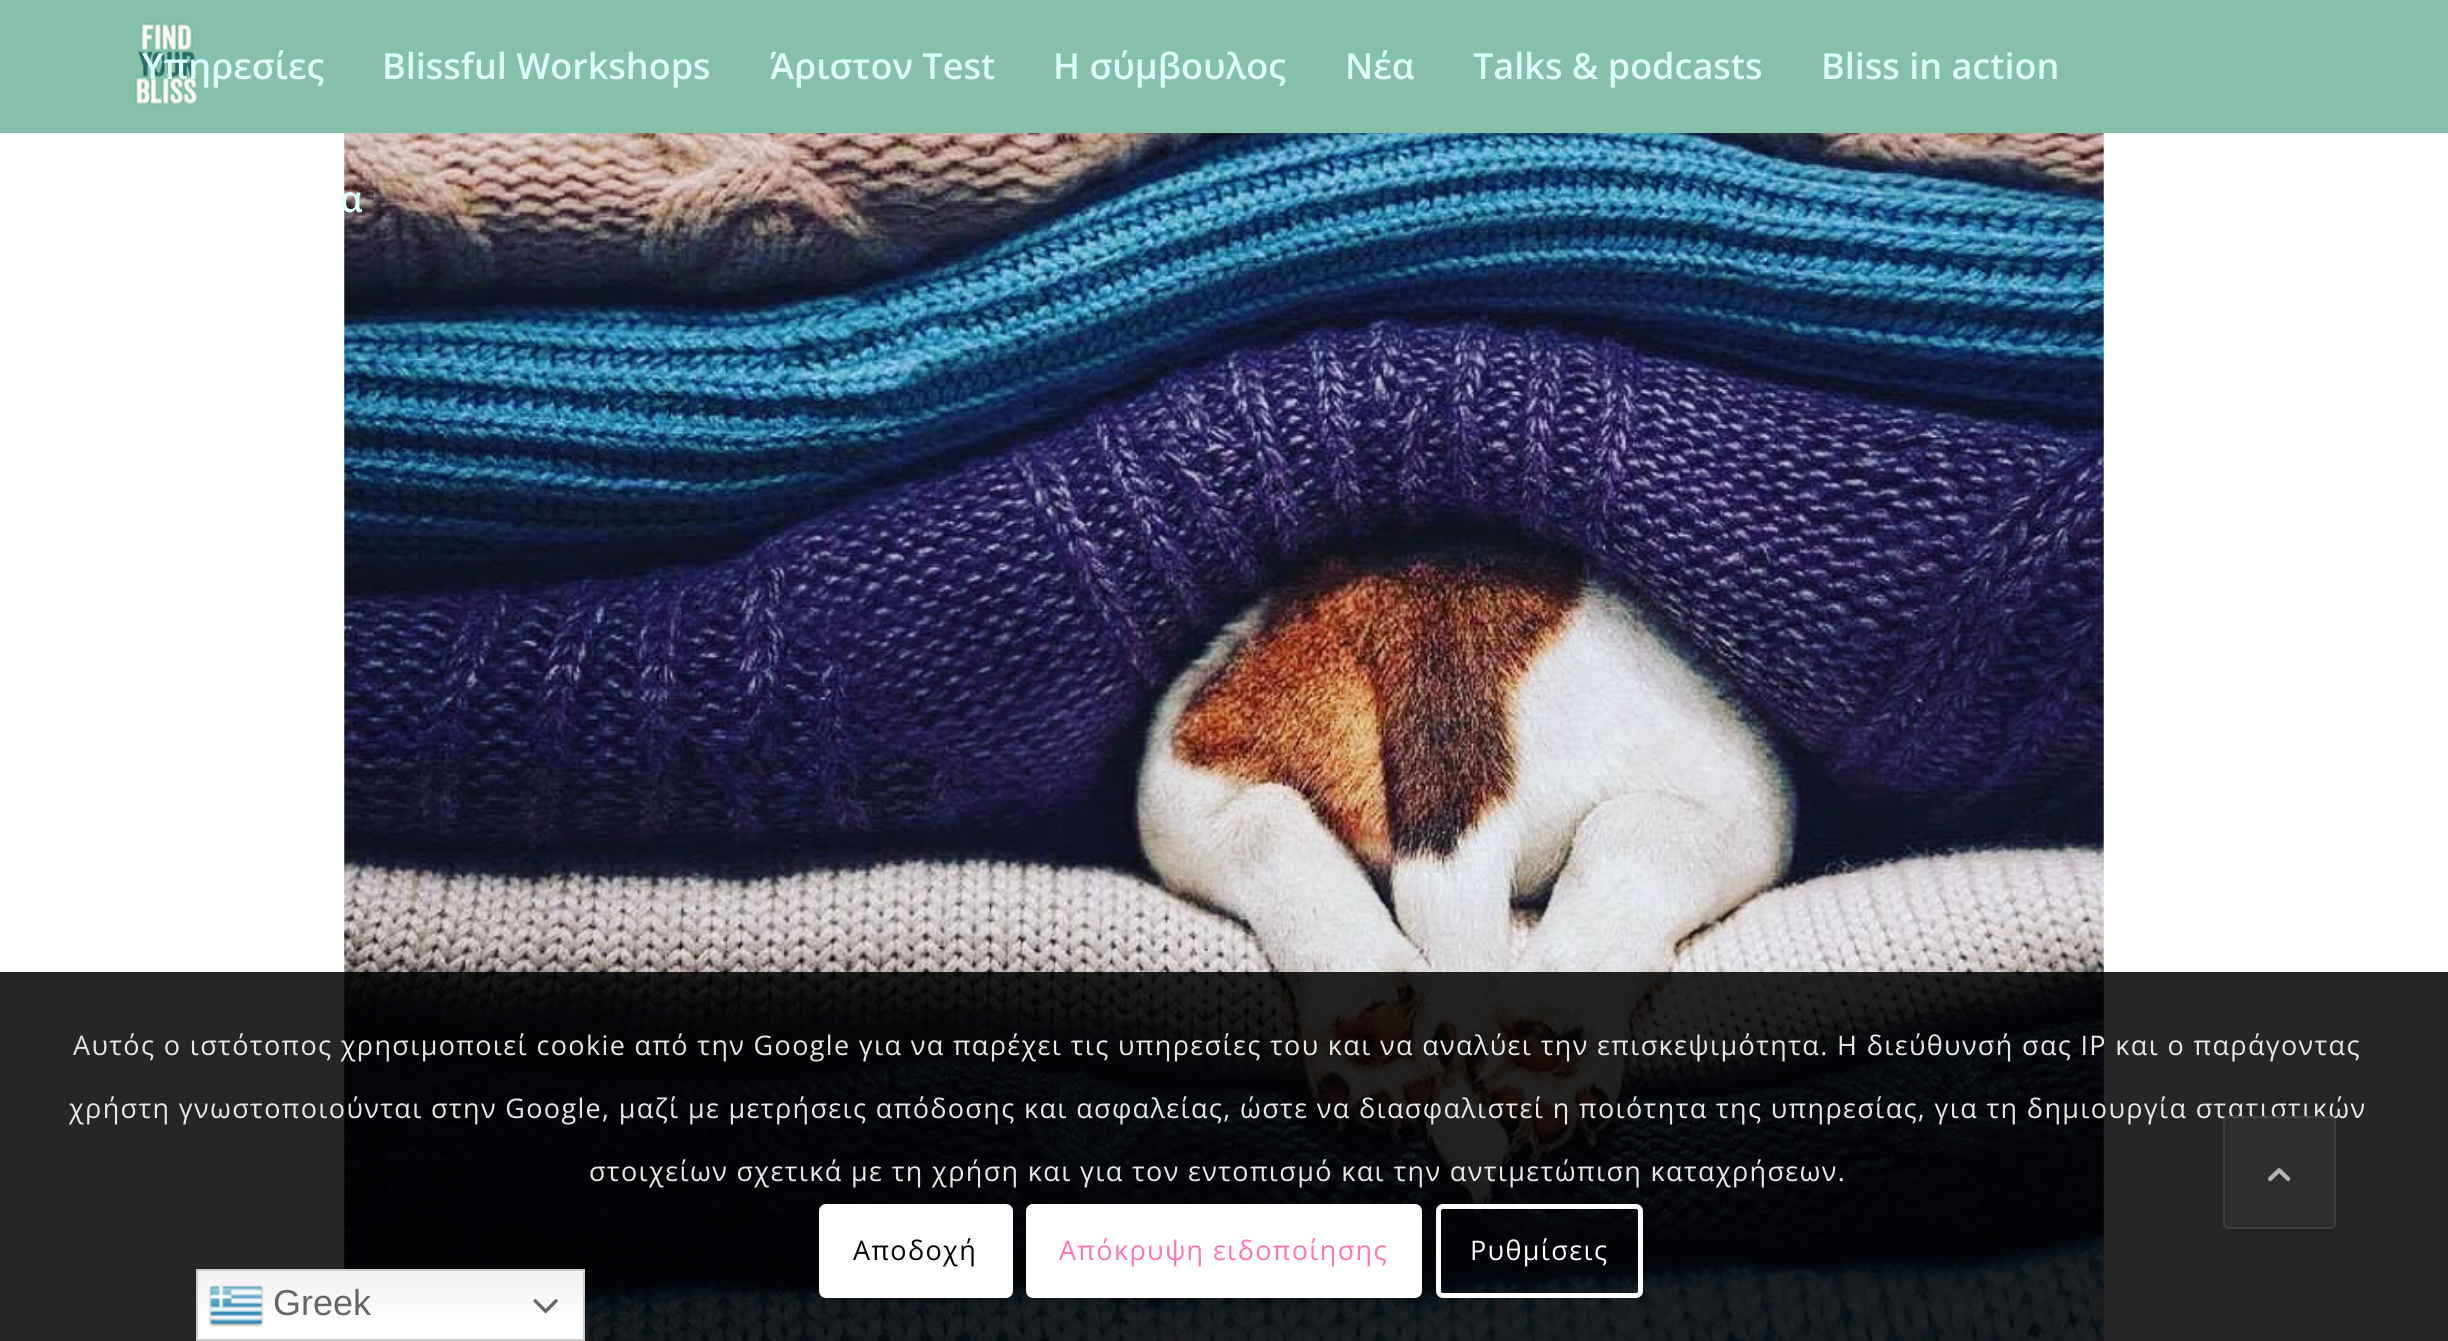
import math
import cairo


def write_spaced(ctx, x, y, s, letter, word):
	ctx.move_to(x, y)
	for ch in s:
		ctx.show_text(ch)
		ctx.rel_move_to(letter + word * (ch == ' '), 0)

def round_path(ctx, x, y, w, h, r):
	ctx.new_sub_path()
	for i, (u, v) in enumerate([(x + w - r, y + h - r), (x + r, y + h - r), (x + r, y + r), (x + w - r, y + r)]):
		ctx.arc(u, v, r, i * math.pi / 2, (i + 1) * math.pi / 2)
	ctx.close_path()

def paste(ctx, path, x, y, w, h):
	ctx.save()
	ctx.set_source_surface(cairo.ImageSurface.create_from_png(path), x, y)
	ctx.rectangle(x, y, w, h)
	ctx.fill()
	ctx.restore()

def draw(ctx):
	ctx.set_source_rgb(1, 1, 1)
	ctx.paint()
	ctx.set_source_rgb(0.525, 0.753, 0.667)
	ctx.rectangle(0, 0, 2448, 133)
	ctx.fill()
	paste(ctx, 'media/1.png', 135, 23, 63, 83)
	ctx.select_font_face('Open Sans SemiBold')
	ctx.set_font_size(36)
	ctx.set_source_rgb(0.871, 1, 0.988)
	for x, y, s in [
		(142, 79, 'Υπηρεσίες'),
		(382, 79, 'Blissful Workshops'),
		(770, 79, 'Άριστον Test'),
		(1053, 79, 'Η σύμβουλος'),
		(1345, 79, 'Νέα'),
		(1473, 79, 'Talks & podcasts'),
		(1821, 79, 'Bliss in action'),
	]:
		ctx.move_to(x, y)
		ctx.show_text(s)
	paste(ctx, 'media/2.png', 344, 133, 1760, 1208)
	ctx.move_to(340, 212)
	ctx.show_text('α')
	ctx.set_source_rgba(0, 0, 0, 0.85)
	ctx.rectangle(0, 972, 2448, 369)
	ctx.fill()
	ctx.select_font_face('Open Sans')
	ctx.set_font_size(27)
	ctx.set_source_rgb(0.906, 0.906, 0.906)
	for x, y, s in [
		(73, 1055, 'Αυτός ο ιστότοπος χρησιμοποιεί cookie από την Google για να παρέχει τις υπηρεσίες του και να αναλύει την επισκεψιμότητα. Η διεύθυνσή σας IP και ο παράγοντας'),
		(69, 1118, 'χρήστη γνωστοποιούνται στην Google, μαζί με μετρήσεις απόδοσης και ασφαλείας, ώστε να διασφαλιστεί η ποιότητα της υπηρεσίας, για τη δημιουργία στατιστικών'),
		(589, 1181, 'στοιχείων σχετικά με τη χρήση και για τον εντοπισμό και την αντιμετώπιση καταχρήσεων.'),
	]:
		write_spaced(ctx, x, y, s, 1.35, 0)
	ctx.set_source_rgb(1, 1, 1)
	round_path(ctx, 819, 1204, 194, 94, 7)
	ctx.fill()
	ctx.set_source_rgb(0, 0, 0)
	write_spaced(ctx, 853, 1260, 'Αποδοχή', 1.35, 0)
	ctx.set_source_rgb(1, 1, 1)
	round_path(ctx, 1028.5, 1206.5, 391, 89, 4.5)
	ctx.fill_preserve()
	ctx.set_line_width(5)
	ctx.stroke()
	ctx.set_source_rgb(1, 0.459, 0.71)
	write_spaced(ctx, 1059, 1260, 'Απόκρυψη ειδοποίησης', 1.35, 0)
	round_path(ctx, 1438.5, 1206.5, 202, 89, 4.5)
	ctx.set_source_rgb(1, 1, 1)
	ctx.stroke()
	write_spaced(ctx, 1470, 1260, 'Ρυθμίσεις', 1.35, 0)
	ctx.set_source_rgba(0.2, 0.2, 0.2, 0.7)
	round_path(ctx, 2223, 1116, 113, 113, 5)
	ctx.fill()
	round_path(ctx, 2224, 1117, 111, 111, 4)
	ctx.set_source_rgba(0.267, 0.267, 0.267, 0.7)
	ctx.set_line_width(2)
	ctx.stroke()
	paste(ctx, 'media/3.png', 2268, 1168, 23, 14)
	gradient = cairo.LinearGradient(390, 1269, 390, 1341)
	gradient.add_color_stop_rgba(0, 0.937, 0.937, 0.937, 1)
	gradient.add_color_stop_rgba(0.7, 1, 1, 1, 1)
	ctx.set_source(gradient)
	ctx.rectangle(198, 1271, 385, 68)
	ctx.fill()
	ctx.rectangle(197, 1270, 387, 70)
	ctx.set_source_rgb(0.8, 0.8, 0.8)
	ctx.stroke()
	paste(ctx, 'media/4.png', 209, 1285, 55, 42)
	ctx.select_font_face('Liberation Sans')
	ctx.set_font_size(36)
	ctx.set_source_rgb(0.4, 0.4, 0.4)
	ctx.move_to(273, 1315)
	ctx.show_text('Greek')
	paste(ctx, 'media/5.png', 533, 1299, 25, 15)


surface = cairo.ImageSurface(cairo.FORMAT_RGB24, 2448, 1341)
ctx = cairo.Context(surface)
options = cairo.FontOptions()
options.set_hint_metrics(cairo.HINT_METRICS_OFF)
options.set_hint_style(cairo.HINT_STYLE_NONE)
ctx.set_font_options(options)
ctx.set_miter_limit(4)
draw(ctx)
surface.write_to_png('image.png')
